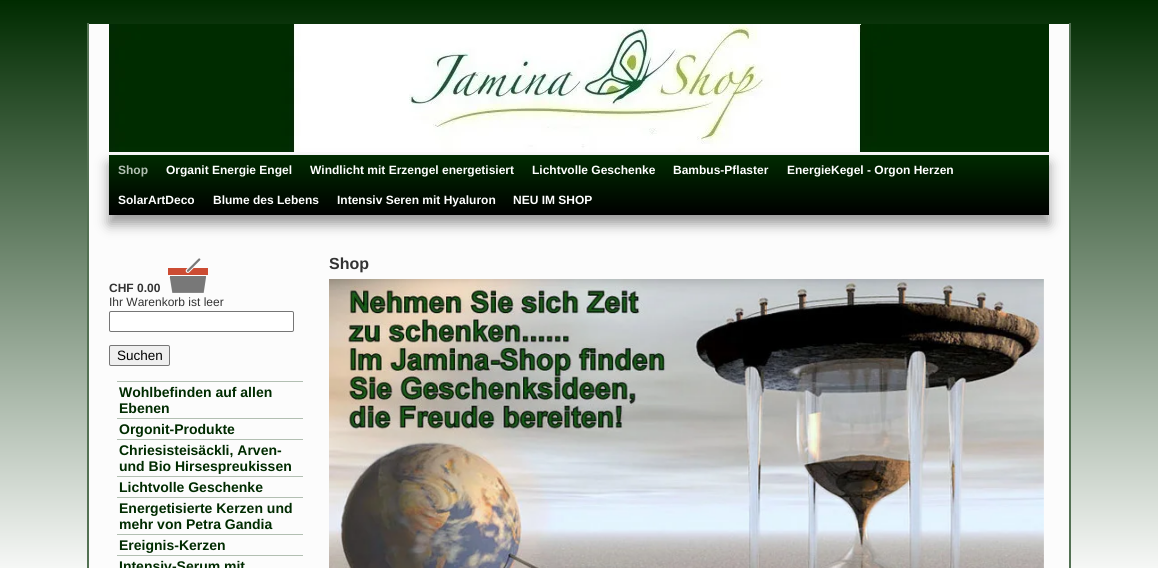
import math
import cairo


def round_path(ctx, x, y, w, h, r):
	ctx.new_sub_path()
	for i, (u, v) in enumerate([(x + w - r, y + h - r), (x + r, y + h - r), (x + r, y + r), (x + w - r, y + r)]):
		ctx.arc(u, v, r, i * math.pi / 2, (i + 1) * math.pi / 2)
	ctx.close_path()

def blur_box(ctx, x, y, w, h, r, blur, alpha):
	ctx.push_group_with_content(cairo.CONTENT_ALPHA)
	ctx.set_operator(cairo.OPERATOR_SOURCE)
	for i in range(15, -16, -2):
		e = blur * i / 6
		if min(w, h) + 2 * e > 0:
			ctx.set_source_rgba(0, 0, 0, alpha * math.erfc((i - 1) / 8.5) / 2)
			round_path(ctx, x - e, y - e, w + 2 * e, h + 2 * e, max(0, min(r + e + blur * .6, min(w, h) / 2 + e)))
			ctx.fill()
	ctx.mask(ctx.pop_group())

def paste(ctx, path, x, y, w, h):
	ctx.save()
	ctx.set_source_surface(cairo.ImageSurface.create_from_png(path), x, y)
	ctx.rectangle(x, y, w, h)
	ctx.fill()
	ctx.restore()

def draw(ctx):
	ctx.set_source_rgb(1, 1, 1)
	ctx.paint()
	gradient = cairo.LinearGradient(579, 0, 579, 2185)
	gradient.add_color_stop_rgba(0, 0, 0.169, 0, 1)
	gradient.add_color_stop_rgba(0.27, 1, 1, 1, 1)
	ctx.set_source(gradient)
	ctx.rectangle(0, 0, 1158, 568)
	ctx.fill()
	ctx.set_source_rgb(0.988, 0.988, 0.988)
	ctx.rectangle(89, 24, 980, 544)
	ctx.fill()
	ctx.set_source_rgb(0.325, 0.443, 0.325)
	ctx.rectangle(1069, 23, 2, 545)
	ctx.rectangle(87, 23, 2, 545)
	ctx.fill()
	paste(ctx, 'media/1.png', 109, 24, 940, 128)
	ctx.set_source_rgb(0.6, 0.6, 0.6)
	blur_box(ctx, 109, 164, 940, 60, 0, 6.5, 1)
	gradient = cairo.LinearGradient(579, 155, 579, 215)
	gradient.add_color_stop_rgba(0, 0, 0.169, 0, 1)
	gradient.add_color_stop_rgba(1, 0, 0, 0, 1)
	ctx.set_source(gradient)
	ctx.rectangle(109, 155, 940, 60)
	ctx.fill()
	ctx.select_font_face('Liberation Sans', cairo.FONT_SLANT_NORMAL, cairo.FONT_WEIGHT_BOLD)
	ctx.set_font_size(12)
	ctx.set_source_rgb(0.698, 0.749, 0.698)
	ctx.move_to(118, 174)
	ctx.show_text('Shop')
	ctx.set_source_rgb(1, 1, 1)
	for x, y, s in [
		(166, 174, 'Organit Energie Engel'),
		(310, 174, 'Windlicht mit Erzengel energetisiert'),
		(532, 174, 'Lichtvolle Geschenke'),
		(673, 174, 'Bambus-Pflaster'),
		(787, 174, 'EnergieKegel - Orgon Herzen'),
		(118, 204, 'SolarArtDeco'),
		(213, 204, 'Blume des Lebens'),
		(337, 204, 'Intensiv Seren mit Hyaluron'),
		(513, 204, 'NEU IM SHOP'),
	]:
		ctx.move_to(x, y)
		ctx.show_text(s)
	ctx.set_font_size(16)
	ctx.set_source_rgb(0.2, 0.2, 0.2)
	ctx.move_to(329, 269)
	ctx.show_text('Shop')
	paste(ctx, 'media/2.png', 329, 279, 715, 289)
	ctx.set_font_size(12)
	ctx.move_to(109, 292)
	ctx.show_text('CHF 0.00')
	paste(ctx, 'media/3.png', 168, 258, 40, 35)
	ctx.select_font_face('Liberation Sans')
	ctx.move_to(109, 306)
	ctx.show_text('Ihr Warenkorb ist leer')
	ctx.set_source_rgb(1, 1, 1)
	round_path(ctx, 109.5, 311.5, 184, 20, 1.5)
	ctx.fill_preserve()
	ctx.set_source_rgb(0.463, 0.463, 0.463)
	ctx.set_line_width(1)
	ctx.stroke()
	ctx.set_source_rgb(0.937, 0.937, 0.937)
	round_path(ctx, 109.5, 345.5, 60, 20, 1.5)
	ctx.fill_preserve()
	ctx.set_source_rgb(0.463, 0.463, 0.463)
	ctx.stroke()
	ctx.set_font_size(13.5)
	ctx.set_source_rgb(0, 0, 0)
	ctx.move_to(117, 360)
	ctx.show_text('Suchen')
	ctx.set_source_rgb(0.698, 0.749, 0.698)
	ctx.rectangle(117, 381, 186, 1)
	ctx.fill()
	ctx.rectangle(117, 418, 186, 1)
	ctx.fill()
	ctx.select_font_face('Liberation Sans', cairo.FONT_SLANT_NORMAL, cairo.FONT_WEIGHT_BOLD)
	ctx.set_font_size(14)
	ctx.set_source_rgb(0, 0.169, 0)
	ctx.move_to(119, 397)
	ctx.show_text('Wohlbefinden auf allen')
	ctx.move_to(119, 413)
	ctx.show_text('Ebenen')
	ctx.set_source_rgb(0.698, 0.749, 0.698)
	ctx.rectangle(117, 439, 186, 1)
	ctx.fill()
	ctx.set_source_rgb(0, 0.169, 0)
	ctx.move_to(119, 434)
	ctx.show_text('Orgonit-Produkte')
	ctx.set_source_rgb(0.698, 0.749, 0.698)
	ctx.rectangle(117, 476, 186, 1)
	ctx.fill()
	ctx.set_source_rgb(0, 0.169, 0)
	ctx.move_to(119, 455)
	ctx.show_text('Chriesisteisäckli, Arven-')
	ctx.move_to(119, 471)
	ctx.show_text('und Bio Hirsespreukissen')
	ctx.set_source_rgb(0.698, 0.749, 0.698)
	ctx.rectangle(117, 497, 186, 1)
	ctx.fill()
	ctx.set_source_rgb(0, 0.169, 0)
	ctx.move_to(119, 492)
	ctx.show_text('Lichtvolle Geschenke')
	ctx.set_source_rgb(0.698, 0.749, 0.698)
	ctx.rectangle(117, 534, 186, 1)
	ctx.fill()
	ctx.set_source_rgb(0, 0.169, 0)
	ctx.move_to(119, 513)
	ctx.show_text('Energetisierte Kerzen und')
	ctx.move_to(119, 529)
	ctx.show_text('mehr von Petra Gandia')
	ctx.set_source_rgb(0.698, 0.749, 0.698)
	ctx.rectangle(117, 555, 186, 1)
	ctx.fill()
	ctx.set_source_rgb(0, 0.169, 0)
	ctx.move_to(119, 550)
	ctx.show_text('Ereignis-Kerzen')
	ctx.move_to(119, 571)
	ctx.show_text('Intensiv-Serum mit')


surface = cairo.ImageSurface(cairo.FORMAT_RGB24, 1158, 568)
ctx = cairo.Context(surface)
options = cairo.FontOptions()
options.set_hint_metrics(cairo.HINT_METRICS_OFF)
options.set_hint_style(cairo.HINT_STYLE_NONE)
ctx.set_font_options(options)
ctx.set_miter_limit(4)
draw(ctx)
surface.write_to_png('image.png')
